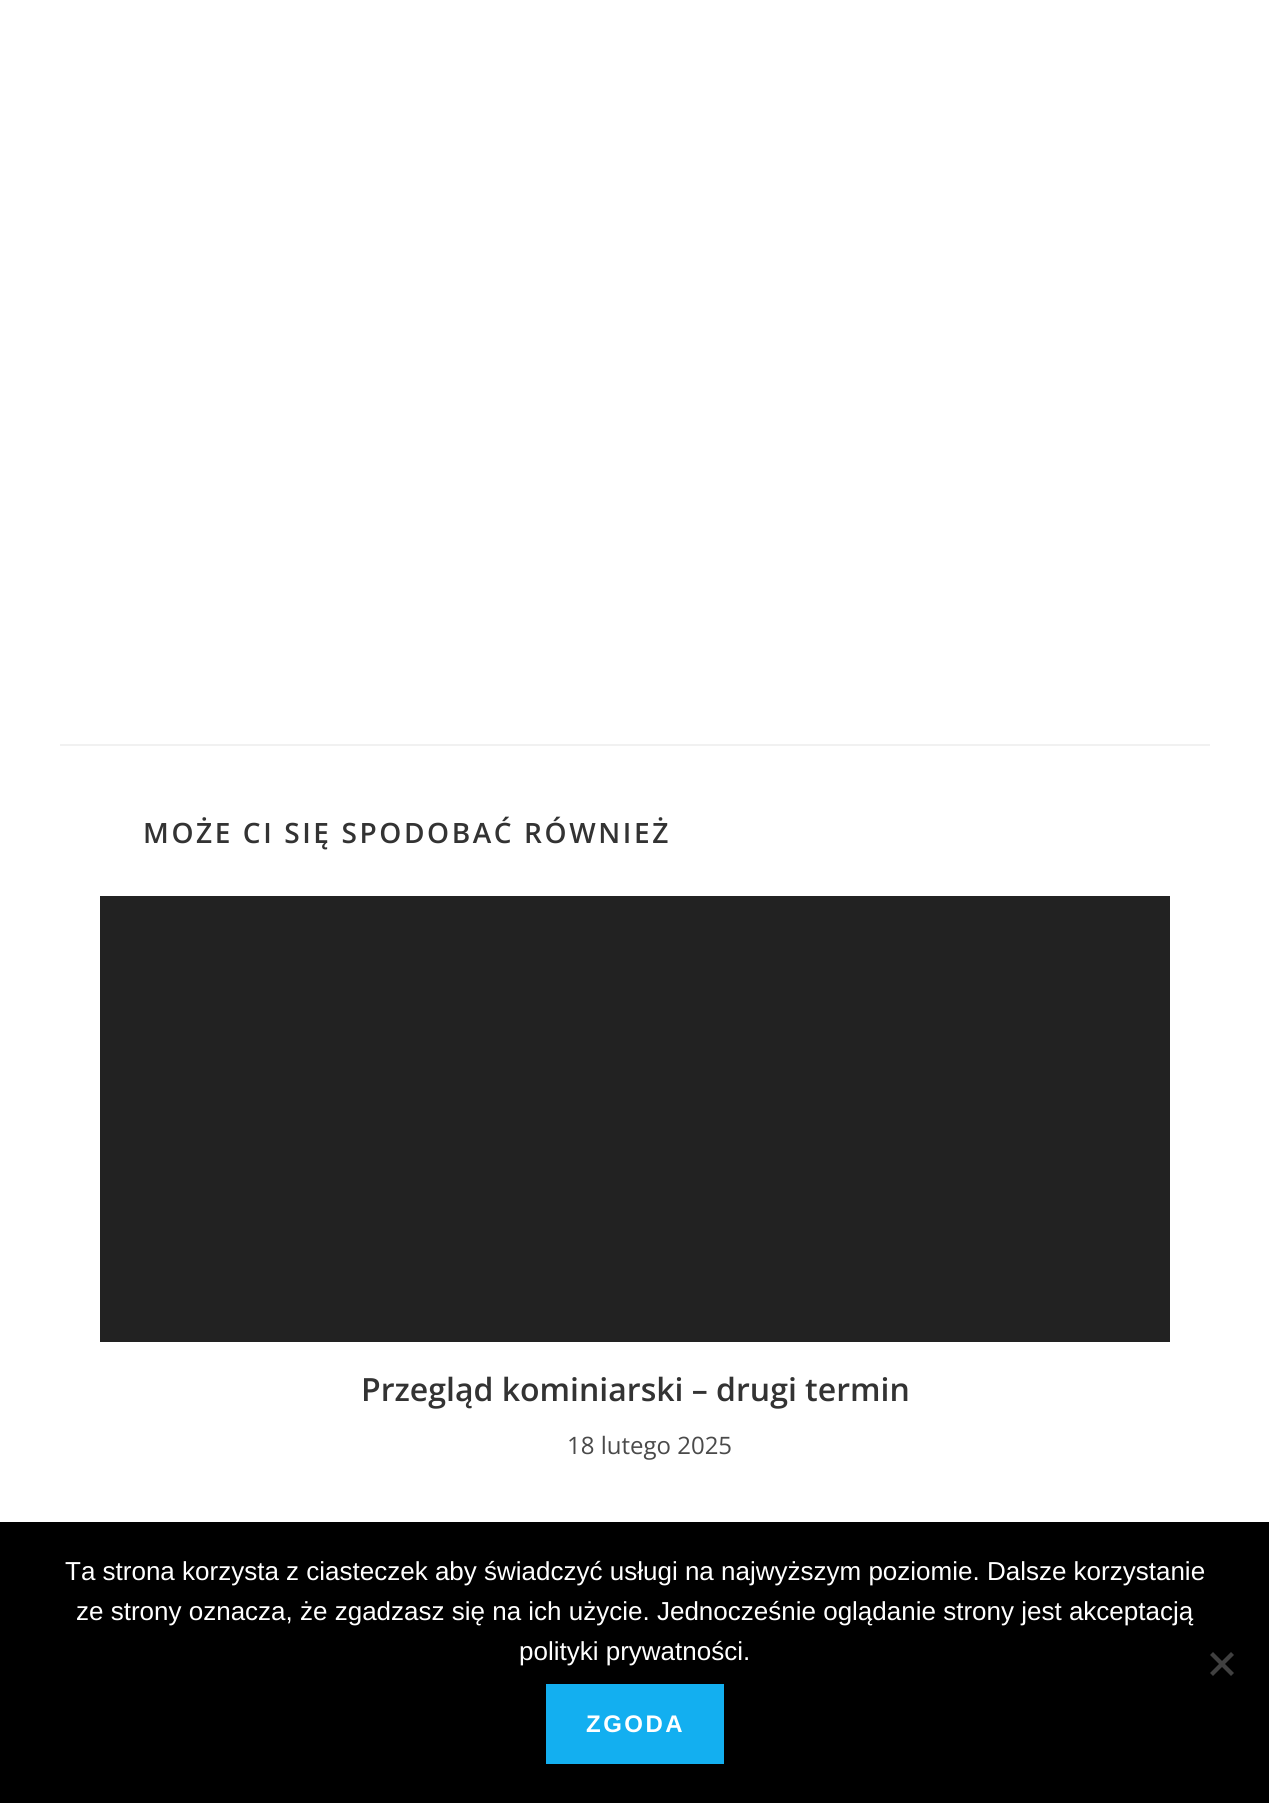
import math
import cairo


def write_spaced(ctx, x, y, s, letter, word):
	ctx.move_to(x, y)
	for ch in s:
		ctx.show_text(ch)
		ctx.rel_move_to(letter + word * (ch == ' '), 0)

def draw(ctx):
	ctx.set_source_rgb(1, 1, 1)
	ctx.paint()
	ctx.set_source_rgb(0.945, 0.945, 0.945)
	ctx.rectangle(60, 744, 1150, 2)
	ctx.fill()
	ctx.select_font_face('Open Sans SemiBold')
	ctx.set_font_size(28)
	ctx.set_source_rgb(0.2, 0.2, 0.2)
	write_spaced(ctx, 143, 843, 'MOŻE CI SIĘ SPODOBAĆ RÓWNIEŻ', 2.6, 0)
	ctx.set_source_rgb(0.133, 0.133, 0.133)
	ctx.rectangle(100, 896, 1070, 446)
	ctx.fill()
	ctx.set_font_size(32)
	ctx.set_source_rgb(0.2, 0.2, 0.2)
	ctx.move_to(361, 1401)
	ctx.show_text('Przegląd kominiarski – drugi termin')
	ctx.select_font_face('Open Sans')
	ctx.set_font_size(24)
	ctx.set_source_rgb(0.29, 0.29, 0.29)
	ctx.move_to(567, 1454)
	ctx.show_text('18 lutego 2025')
	ctx.set_source_rgb(0, 0, 0)
	ctx.rectangle(0, 1522, 1269, 281)
	ctx.fill()
	ctx.select_font_face('Liberation Sans')
	ctx.set_font_size(26)
	ctx.set_source_rgb(1, 1, 1)
	for x, y, s in [
		(65, 1580, 'Ta strona korzysta z ciasteczek aby świadczyć usługi na najwyższym poziomie. Dalsze korzystanie'),
		(76, 1620, 'ze strony oznacza, że zgadzasz się na ich użycie. Jednocześnie oglądanie strony jest akceptacją'),
		(519, 1660, 'polityki prywatności.'),
	]:
		ctx.move_to(x, y)
		ctx.show_text(s)
	ctx.set_source_rgb(0.251, 0.251, 0.251)
	ctx.new_path()
	ctx.move_to(1231, 1652)
	ctx.line_to(1234, 1655)
	ctx.line_to(1213, 1676)
	ctx.line_to(1210, 1673)
	ctx.close_path()
	ctx.fill()
	ctx.new_path()
	ctx.move_to(1210, 1655)
	ctx.line_to(1213, 1652)
	ctx.line_to(1234, 1673)
	ctx.line_to(1231, 1676)
	ctx.close_path()
	ctx.fill()
	ctx.set_source_rgb(0.075, 0.686, 0.941)
	ctx.rectangle(546, 1684, 178, 80)
	ctx.fill()
	ctx.select_font_face('Liberation Sans', cairo.FONT_SLANT_NORMAL, cairo.FONT_WEIGHT_BOLD)
	ctx.set_font_size(24)
	ctx.set_source_rgb(1, 1, 1)
	write_spaced(ctx, 586, 1732, 'ZGODA', 2.5, 0)


surface = cairo.ImageSurface(cairo.FORMAT_RGB24, 1269, 1803)
ctx = cairo.Context(surface)
options = cairo.FontOptions()
options.set_hint_metrics(cairo.HINT_METRICS_OFF)
options.set_hint_style(cairo.HINT_STYLE_NONE)
ctx.set_font_options(options)
ctx.set_miter_limit(4)
draw(ctx)
surface.write_to_png('image.png')
